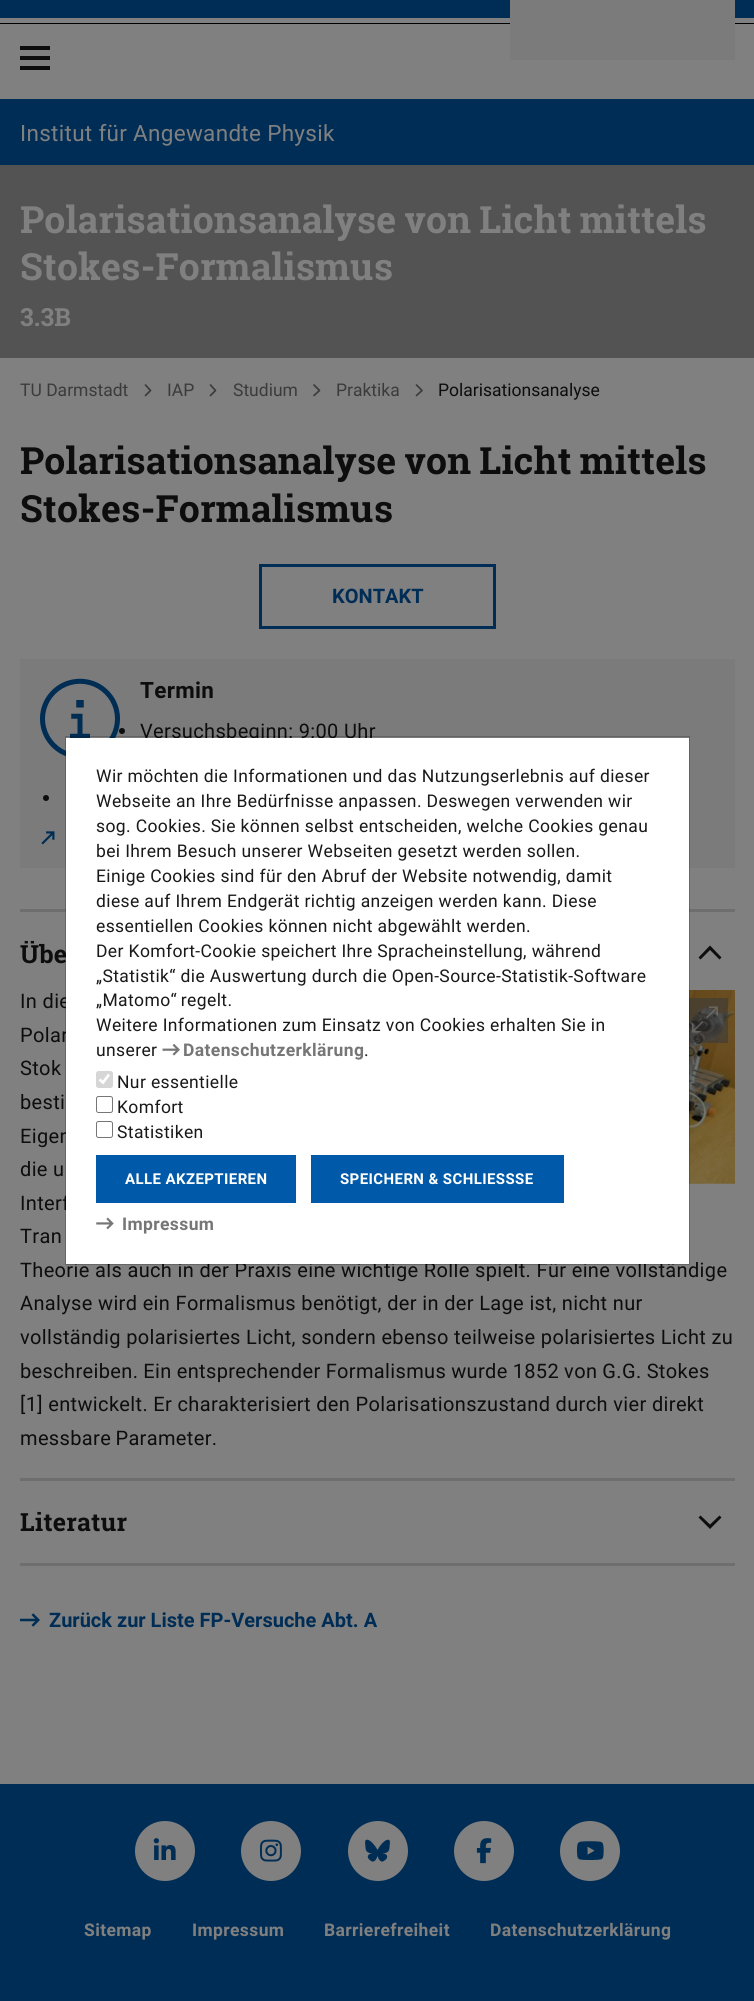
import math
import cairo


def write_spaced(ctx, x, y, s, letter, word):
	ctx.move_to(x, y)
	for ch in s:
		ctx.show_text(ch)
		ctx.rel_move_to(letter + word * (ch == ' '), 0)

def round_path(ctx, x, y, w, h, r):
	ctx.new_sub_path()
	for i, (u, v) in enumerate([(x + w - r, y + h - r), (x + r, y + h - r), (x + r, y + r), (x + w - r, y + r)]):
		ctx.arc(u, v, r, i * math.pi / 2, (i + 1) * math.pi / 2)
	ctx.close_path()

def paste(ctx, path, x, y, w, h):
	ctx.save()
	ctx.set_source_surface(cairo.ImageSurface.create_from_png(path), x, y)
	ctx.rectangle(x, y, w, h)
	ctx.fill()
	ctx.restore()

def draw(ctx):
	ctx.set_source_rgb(0.502, 0.502, 0.502)
	ctx.paint()
	ctx.set_source_rgb(0, 0.176, 0.333)
	ctx.rectangle(0, 0, 754, 18)
	ctx.fill()
	ctx.set_source_rgb(0, 0, 0)
	ctx.rectangle(0, 23, 754, 1)
	ctx.fill()
	ctx.set_source_rgb(0.051, 0.051, 0.051)
	ctx.rectangle(20, 56, 30, 4)
	ctx.rectangle(20, 46, 30, 4)
	ctx.rectangle(20, 66, 30, 4)
	ctx.fill()
	ctx.set_source_rgb(0.482, 0.482, 0.482)
	ctx.rectangle(510, 0, 225, 60)
	ctx.fill()
	ctx.set_source_rgb(0, 0.176, 0.333)
	ctx.rectangle(0, 99, 754, 66)
	ctx.fill()
	ctx.select_font_face('Roboto')
	ctx.set_font_size(22.5)
	ctx.set_source_rgb(0.502, 0.502, 0.502)
	write_spaced(ctx, 20, 141, 'Institut für Angewandte Physik', 0.3, 0)
	ctx.set_source_rgb(0.325, 0.325, 0.325)
	ctx.rectangle(0, 165, 754, 193)
	ctx.fill()
	ctx.select_font_face('Roboto Slab', cairo.FONT_SLANT_NORMAL, cairo.FONT_WEIGHT_BOLD)
	ctx.set_font_size(37.5)
	ctx.set_source_rgb(0.502, 0.502, 0.502)
	write_spaced(ctx, 20, 233, 'Polarisationsanalyse von Licht mittels', 0.1, -1)
	write_spaced(ctx, 20, 280, 'Stokes-Formalismus', 0.1, 0)
	ctx.set_font_size(25)
	write_spaced(ctx, 20, 326, '3.3B', 0.25, 0)
	ctx.select_font_face('Roboto')
	ctx.set_font_size(17.5)
	ctx.set_source_rgb(0.231, 0.231, 0.231)
	ctx.move_to(20, 396)
	ctx.show_text('TU Darmstadt')
	ctx.new_path()
	ctx.move_to(145.5, 395.5)
	ctx.line_to(150.5, 390.5)
	ctx.line_to(145.5, 385)
	ctx.set_line_width(1.7)
	ctx.set_line_cap(cairo.LINE_CAP_ROUND)
	ctx.set_line_join(cairo.LINE_JOIN_ROUND)
	ctx.stroke()
	ctx.move_to(167, 396)
	ctx.show_text('IAP')
	ctx.new_path()
	ctx.move_to(210.5, 395.5)
	ctx.line_to(215.5, 390.5)
	ctx.line_to(210.5, 385)
	ctx.stroke()
	ctx.move_to(233, 396)
	ctx.show_text('Studium')
	ctx.new_path()
	ctx.move_to(314, 395.5)
	ctx.line_to(319.5, 390.5)
	ctx.line_to(314, 385)
	ctx.stroke()
	ctx.move_to(336, 396)
	ctx.show_text('Praktika')
	ctx.new_path()
	ctx.move_to(416.5, 395.5)
	ctx.line_to(422, 390.5)
	ctx.line_to(416.5, 385)
	ctx.stroke()
	ctx.set_source_rgb(0.051, 0.051, 0.051)
	ctx.move_to(438, 396)
	ctx.show_text('Polarisationsanalyse')
	ctx.select_font_face('Roboto Slab', cairo.FONT_SLANT_NORMAL, cairo.FONT_WEIGHT_BOLD)
	ctx.set_font_size(37.5)
	write_spaced(ctx, 20, 474, 'Polarisationsanalyse von Licht mittels', 0.1, -1)
	write_spaced(ctx, 20, 522, 'Stokes-Formalismus', 0.1, 0)
	ctx.rectangle(260.5, 565.5, 234, 62)
	ctx.set_source_rgb(0, 0.176, 0.333)
	ctx.set_line_width(3)
	ctx.set_line_cap(cairo.LINE_CAP_BUTT)
	ctx.set_line_join(cairo.LINE_JOIN_MITER)
	ctx.stroke()
	ctx.select_font_face('Roboto', cairo.FONT_SLANT_NORMAL, cairo.FONT_WEIGHT_BOLD)
	ctx.set_font_size(20)
	ctx.move_to(332, 603)
	ctx.show_text('KONTAKT')
	ctx.set_source_rgb(0.482, 0.482, 0.482)
	ctx.rectangle(20, 659, 715, 209)
	ctx.fill()
	paste(ctx, 'media/1.png', 40, 678, 80, 79)
	ctx.set_font_size(22.5)
	ctx.set_source_rgb(0.051, 0.051, 0.051)
	write_spaced(ctx, 140, 698, 'Termin', 0.3, 0)
	ctx.new_path()
	ctx.arc(122, 731, 3, 0, 2 * math.pi)
	ctx.fill()
	ctx.select_font_face('Roboto')
	ctx.set_font_size(20)
	write_spaced(ctx, 140, 738, 'Versuchsbeginn: 9:00 Uhr', 0.35, 0)
	ctx.new_path()
	ctx.arc(46, 798, 3, 0, 2 * math.pi)
	ctx.fill()
	paste(ctx, 'media/2.png', 41, 831, 14, 14)
	ctx.set_source_rgb(0.431, 0.431, 0.431)
	ctx.rectangle(20, 909, 715, 3)
	ctx.fill()
	ctx.rectangle(20, 1478, 715, 3)
	ctx.fill()
	ctx.select_font_face('Roboto Slab', cairo.FONT_SLANT_NORMAL, cairo.FONT_WEIGHT_BOLD)
	ctx.set_font_size(25)
	ctx.set_source_rgb(0.051, 0.051, 0.051)
	write_spaced(ctx, 20, 963, 'Übe', 0.25, 0)
	ctx.new_path()
	ctx.move_to(710, 945.5)
	ctx.line_to(698.5, 957.5)
	ctx.line_to(700.5, 959.5)
	ctx.line_to(710, 950)
	ctx.line_to(719.5, 959.5)
	ctx.line_to(721.5, 957.5)
	ctx.close_path()
	ctx.fill()
	paste(ctx, 'media/3.png', 689, 990, 46, 194)
	ctx.set_source_rgba(0.231, 0.231, 0.231, 0.6)
	ctx.rectangle(689, 998, 39, 45)
	ctx.fill()
	paste(ctx, 'media/4.png', 691, 1006, 27, 27)
	ctx.select_font_face('Roboto')
	ctx.set_font_size(20)
	ctx.set_source_rgb(0.051, 0.051, 0.051)
	write_spaced(ctx, 20, 1008, 'In die', 0.35, 0)
	write_spaced(ctx, 20, 1042, 'Polar', 0.35, 0)
	write_spaced(ctx, 20, 1075, 'Stok', 0.35, -1)
	for x, y, s in [
		(20, 1109, 'besti'),
		(20, 1143, 'Eigen'),
		(20, 1176, 'die u'),
	]:
		write_spaced(ctx, x, y, s, 0.35, 0)
	write_spaced(ctx, 20, 1210, 'Interf', 0.35, -1)
	for x, y, s in [
		(20, 1243, 'Tran'),
		(20, 1277, 'Theorie als auch in der Praxis eine wichtige Rolle spielt. Für eine vollständige'),
		(20, 1310, 'Analyse wird ein Formalismus benötigt, der in der Lage ist, nicht nur'),
		(20, 1344, 'vollständig polarisiertes Licht, sondern ebenso teilweise polarisiertes Licht zu'),
	]:
		write_spaced(ctx, x, y, s, 0.35, 0)
	write_spaced(ctx, 20, 1378, 'beschreiben. Ein entsprechender Formalismus wurde 1852 von G.G. Stokes', 0.35, -0.25)
	write_spaced(ctx, 20, 1411, '[1] entwickelt. Er charakterisiert den Polarisationszustand durch vier direkt', 0.35, 0)
	write_spaced(ctx, 20, 1445, 'messbare Parameter.', 0.35, -1)
	ctx.set_source_rgb(0.431, 0.431, 0.431)
	ctx.rectangle(20, 1563, 715, 3)
	ctx.fill()
	ctx.select_font_face('Roboto Slab', cairo.FONT_SLANT_NORMAL, cairo.FONT_WEIGHT_BOLD)
	ctx.set_font_size(25)
	ctx.set_source_rgb(0.051, 0.051, 0.051)
	write_spaced(ctx, 20, 1531, 'Literatur', 0.25, 0)
	ctx.new_path()
	ctx.move_to(710, 1529)
	ctx.line_to(721.5, 1517.5)
	ctx.line_to(719.5, 1515.5)
	ctx.line_to(710, 1524.5)
	ctx.line_to(700.5, 1515.5)
	ctx.line_to(698.5, 1517.5)
	ctx.close_path()
	ctx.fill()
	paste(ctx, 'media/5.png', 20, 1613, 20, 14)
	ctx.select_font_face('Roboto', cairo.FONT_SLANT_NORMAL, cairo.FONT_WEIGHT_BOLD)
	ctx.set_font_size(20)
	ctx.set_source_rgb(0, 0.176, 0.333)
	ctx.move_to(49, 1627)
	ctx.show_text('Zurück zur Liste FP-Versuche Abt. A')
	ctx.rectangle(0, 1784, 754, 217)
	ctx.fill()
	ctx.set_source_rgb(0.502, 0.502, 0.502)
	ctx.arc(165, 1851, 30, 0, 2 * math.pi)
	ctx.fill()
	paste(ctx, 'media/6.png', 153, 1838, 23, 22)
	ctx.arc(271, 1851, 30, 0, 2 * math.pi)
	ctx.fill()
	paste(ctx, 'media/7.png', 260, 1839, 22, 23)
	ctx.arc(378, 1851, 30, 0, 2 * math.pi)
	ctx.fill()
	paste(ctx, 'media/8.png', 365, 1839, 25, 23)
	ctx.arc(484, 1851, 30, 0, 2 * math.pi)
	ctx.fill()
	paste(ctx, 'media/9.png', 476, 1838, 16, 26)
	ctx.arc(590, 1851, 30, 0, 2 * math.pi)
	ctx.fill()
	paste(ctx, 'media/10.png', 577, 1841, 27, 19)
	ctx.set_font_size(17.5)
	for x, y, s in [
		(84, 1936, 'Sitemap'),
		(192, 1936, 'Impressum'),
		(324, 1936, 'Barrierefreiheit'),
		(490, 1936, 'Datenschutzerklärung'),
	]:
		write_spaced(ctx, x, y, s, 0.38, 0)
	ctx.set_source_rgb(1, 1, 1)
	ctx.rectangle(66, 738, 623, 526)
	ctx.fill()
	ctx.rectangle(65.5, 736.5, 624, 528)
	ctx.set_source_rgba(0, 0, 0, 0.2)
	ctx.set_line_width(1)
	ctx.stroke()
	ctx.select_font_face('Roboto')
	ctx.set_source_rgb(0.102, 0.098, 0.098)
	for x, y, s in [
		(96, 782, 'Wir möchten die Informationen und das Nutzungserlebnis auf dieser'),
		(96, 807, 'Webseite an Ihre Bedürfnisse anpassen. Deswegen verwenden wir'),
		(96, 832, 'sog. Cookies. Sie können selbst entscheiden, welche Cookies genau'),
		(96, 857, 'bei Ihrem Besuch unserer Webseiten gesetzt werden sollen.'),
		(96, 882, 'Einige Cookies sind für den Abruf der Website notwendig, damit'),
		(96, 907, 'diese auf Ihrem Endgerät richtig anzeigen werden kann. Diese'),
		(96, 932, 'essentiellen Cookies können nicht abgewählt werden.'),
		(96, 957, 'Der Komfort-Cookie speichert Ihre Spracheinstellung, während'),
		(96, 982, '„Statistik“ die Auswertung durch die Open-Source-Statistik-Software'),
	]:
		write_spaced(ctx, x, y, s, 0.38, 0)
	write_spaced(ctx, 96, 1006, '„Matomo“ regelt.', 0.38, -1)
	write_spaced(ctx, 96, 1031, 'Weitere Informationen zum Einsatz von Cookies erhalten Sie in', 0.38, 0)
	write_spaced(ctx, 96, 1056, 'unserer', 0.38, 0)
	paste(ctx, 'media/11.png', 162, 1043, 18, 13)
	ctx.select_font_face('Roboto', cairo.FONT_SLANT_NORMAL, cairo.FONT_WEIGHT_BOLD)
	ctx.set_source_rgb(0.463, 0.463, 0.463)
	write_spaced(ctx, 183, 1056, 'Datenschutzerklärung', 0.38, 0)
	ctx.select_font_face('Roboto')
	ctx.set_source_rgb(0.102, 0.098, 0.098)
	write_spaced(ctx, 364, 1056, '.', 0.38, 0)
	ctx.set_source_rgb(0.839, 0.839, 0.839)
	round_path(ctx, 96, 1071, 17, 17, 2.5)
	ctx.fill()
	ctx.new_path()
	ctx.move_to(99.5, 1079.5)
	ctx.line_to(103, 1082.5)
	ctx.line_to(109, 1074.5)
	ctx.set_source_rgb(1, 1, 1)
	ctx.set_line_width(2.6)
	ctx.stroke()
	ctx.set_source_rgb(0.102, 0.098, 0.098)
	write_spaced(ctx, 117, 1088, 'Nur essentielle', 0.38, 0)
	round_path(ctx, 96.5, 1096.5, 16, 16, 2)
	ctx.set_source_rgb(0.463, 0.463, 0.463)
	ctx.set_line_width(1)
	ctx.stroke()
	ctx.set_source_rgb(0.102, 0.098, 0.098)
	write_spaced(ctx, 117, 1113, 'Komfort', 0.38, 0)
	round_path(ctx, 96.5, 1121.5, 16, 16, 2)
	ctx.set_source_rgb(0.463, 0.463, 0.463)
	ctx.stroke()
	ctx.set_source_rgb(0.102, 0.098, 0.098)
	write_spaced(ctx, 117, 1138, 'Statistiken', 0.38, 0)
	ctx.set_source_rgb(0, 0.353, 0.663)
	ctx.rectangle(96, 1155, 200, 48)
	ctx.fill()
	ctx.select_font_face('Roboto', cairo.FONT_SLANT_NORMAL, cairo.FONT_WEIGHT_BOLD)
	ctx.set_font_size(15)
	ctx.set_source_rgb(1, 1, 1)
	write_spaced(ctx, 125, 1184, 'ALLE AKZEPTIEREN', 0.4, 0)
	ctx.set_source_rgb(0, 0.353, 0.663)
	ctx.rectangle(311, 1155, 253, 48)
	ctx.fill()
	ctx.set_source_rgb(1, 1, 1)
	write_spaced(ctx, 340, 1184, 'SPEICHERN & SCHLIESSSE', 0.4, 0)
	paste(ctx, 'media/12.png', 96, 1217, 18, 13)
	ctx.set_font_size(17.5)
	ctx.set_source_rgb(0.463, 0.463, 0.463)
	write_spaced(ctx, 122, 1230, 'Impressum', 0.38, 0)


surface = cairo.ImageSurface(cairo.FORMAT_RGB24, 754, 2001)
ctx = cairo.Context(surface)
options = cairo.FontOptions()
options.set_hint_metrics(cairo.HINT_METRICS_OFF)
options.set_hint_style(cairo.HINT_STYLE_NONE)
ctx.set_font_options(options)
ctx.set_miter_limit(4)
draw(ctx)
surface.write_to_png('image.png')
